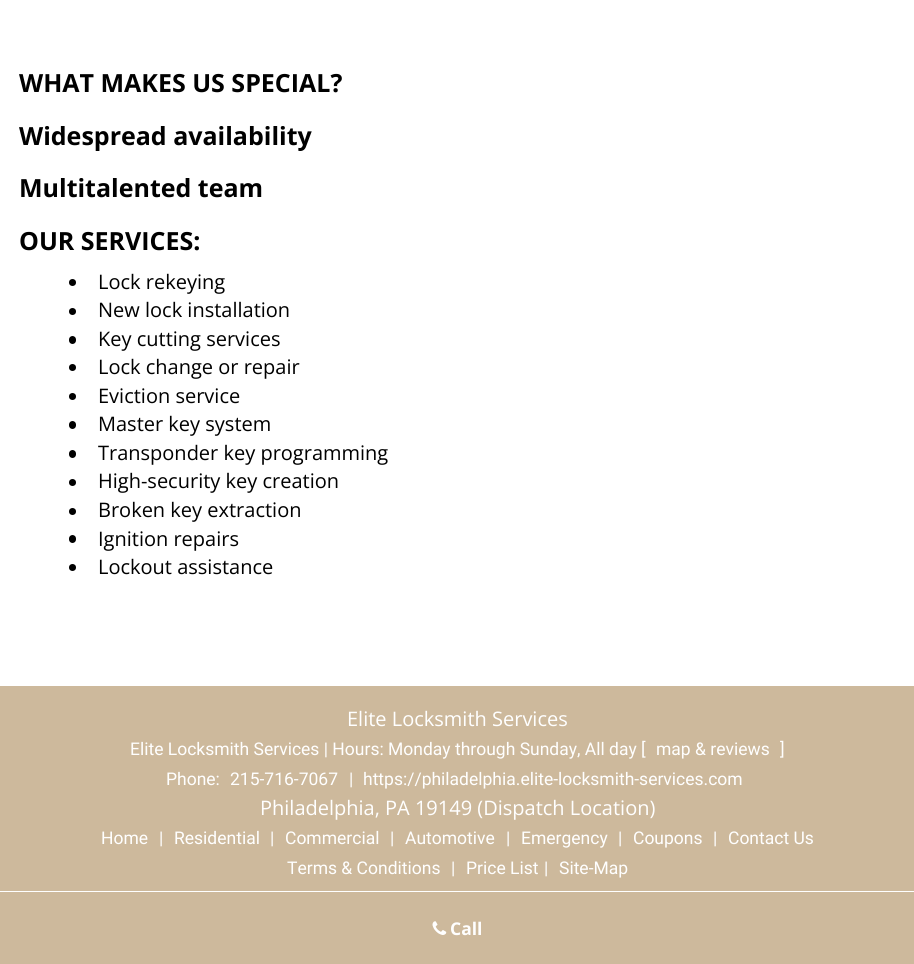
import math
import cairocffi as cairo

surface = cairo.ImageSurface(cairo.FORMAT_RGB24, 914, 964)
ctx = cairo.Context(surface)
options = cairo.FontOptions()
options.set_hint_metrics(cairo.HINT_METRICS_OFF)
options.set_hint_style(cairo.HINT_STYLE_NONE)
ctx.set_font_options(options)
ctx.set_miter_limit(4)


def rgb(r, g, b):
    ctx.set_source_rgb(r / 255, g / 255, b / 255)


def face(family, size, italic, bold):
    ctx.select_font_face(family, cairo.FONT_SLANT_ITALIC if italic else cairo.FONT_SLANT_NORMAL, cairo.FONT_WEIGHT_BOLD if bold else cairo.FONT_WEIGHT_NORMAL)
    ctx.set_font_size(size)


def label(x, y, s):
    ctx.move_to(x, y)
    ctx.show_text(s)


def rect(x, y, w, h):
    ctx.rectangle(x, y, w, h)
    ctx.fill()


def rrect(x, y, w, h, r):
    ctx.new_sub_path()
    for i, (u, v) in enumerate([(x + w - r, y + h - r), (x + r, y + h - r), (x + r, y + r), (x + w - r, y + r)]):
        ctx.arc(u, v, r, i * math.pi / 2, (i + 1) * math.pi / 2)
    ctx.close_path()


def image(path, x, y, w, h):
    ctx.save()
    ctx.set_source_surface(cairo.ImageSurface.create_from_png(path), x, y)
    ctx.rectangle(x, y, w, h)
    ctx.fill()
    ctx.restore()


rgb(205, 185, 156)
ctx.paint()
rgb(255, 255, 255)
rect(0, 0, 914, 686)
face('Open Sans', 25, 0, 1)
rgb(0, 0, 0)
label(19, 92, 'WHAT MAKES US SPECIAL?')
label(19, 145, 'Widespread availability')
label(19, 197, 'Multitalented team')
label(19, 250, 'OUR SERVICES:')
ctx.new_path()
ctx.arc(72.5, 282.5, 3.5, 0, 2 * math.pi)
ctx.fill()
face('Open Sans', 20, 0, 0)
label(98, 289, 'Lock rekeying')
ctx.new_path()
ctx.arc(72.5, 311.5, 3.5, 0, 2 * math.pi)
ctx.fill()
label(98, 317, 'New lock installation')
rrect(69, 336, 7, 8, 3.5)
ctx.fill()
label(98, 346, 'Key cutting services')
ctx.new_path()
ctx.arc(72.5, 367.5, 3.5, 0, 2 * math.pi)
ctx.fill()
label(98, 374, 'Lock change or repair')
ctx.new_path()
ctx.arc(72.5, 396.5, 3.5, 0, 2 * math.pi)
ctx.fill()
label(98, 403, 'Eviction service')
rrect(69, 421, 7, 8, 3.5)
ctx.fill()
label(98, 431, 'Master key system')
rrect(69, 450, 7, 8, 3.5)
ctx.fill()
label(98, 460, 'Transponder key programming')
ctx.new_path()
ctx.arc(72.5, 482.5, 3.5, 0, 2 * math.pi)
ctx.fill()
label(98, 488, 'High-security key creation')
ctx.new_path()
ctx.arc(72.5, 511.5, 3.5, 0, 2 * math.pi)
ctx.fill()
label(98, 517, 'Broken key extraction')
rrect(69, 535, 7, 8, 3.5)
ctx.fill()
label(98, 546, 'Ignition repairs')
ctx.new_path()
ctx.arc(72.5, 567.5, 3.5, 0, 2 * math.pi)
ctx.fill()
label(98, 574, 'Lockout assistance')
rgb(255, 255, 255)
label(347, 726, 'Elite Locksmith Services')
face('Roboto', 17.5, 0, 0)
label(130, 755, 'Elite Locksmith Services | Hours: Monday through Sunday, All day [')
label(656, 755, 'map & reviews')
label(780, 755, ']')
label(166, 785, 'Phone:')
label(230, 785, '215-716-7067')
label(349, 785, '|')
label(363, 785, 'https://philadelphia.elite-locksmith-services.com')
face('Open Sans', 20, 0, 0)
label(260, 815, 'Philadelphia, PA 19149 (Dispatch Location)')
face('Roboto', 17.5, 0, 0)
label(101, 844, 'Home')
label(159, 844, '|')
label(174, 844, 'Residential')
label(270, 844, '|')
label(285, 844, 'Commercial')
label(390, 844, '|')
label(405, 844, 'Automotive')
label(506, 844, '|')
label(521, 844, 'Emergency')
label(618, 844, '|')
label(633, 844, 'Coupons')
label(713, 844, '|')
label(728, 844, 'Contact Us')
label(287, 874, 'Terms & Conditions')
label(451, 874, '|')
label(466, 874, 'Price List')
label(544, 874, '|')
label(559, 874, 'Site-Map')
rect(0, 891, 914, 1)
image('image0.png', 432, 921, 15, 14)
face('Open Sans', 17.5, 0, 1)
label(450, 935, 'Call')
surface.write_to_png('render.png')
